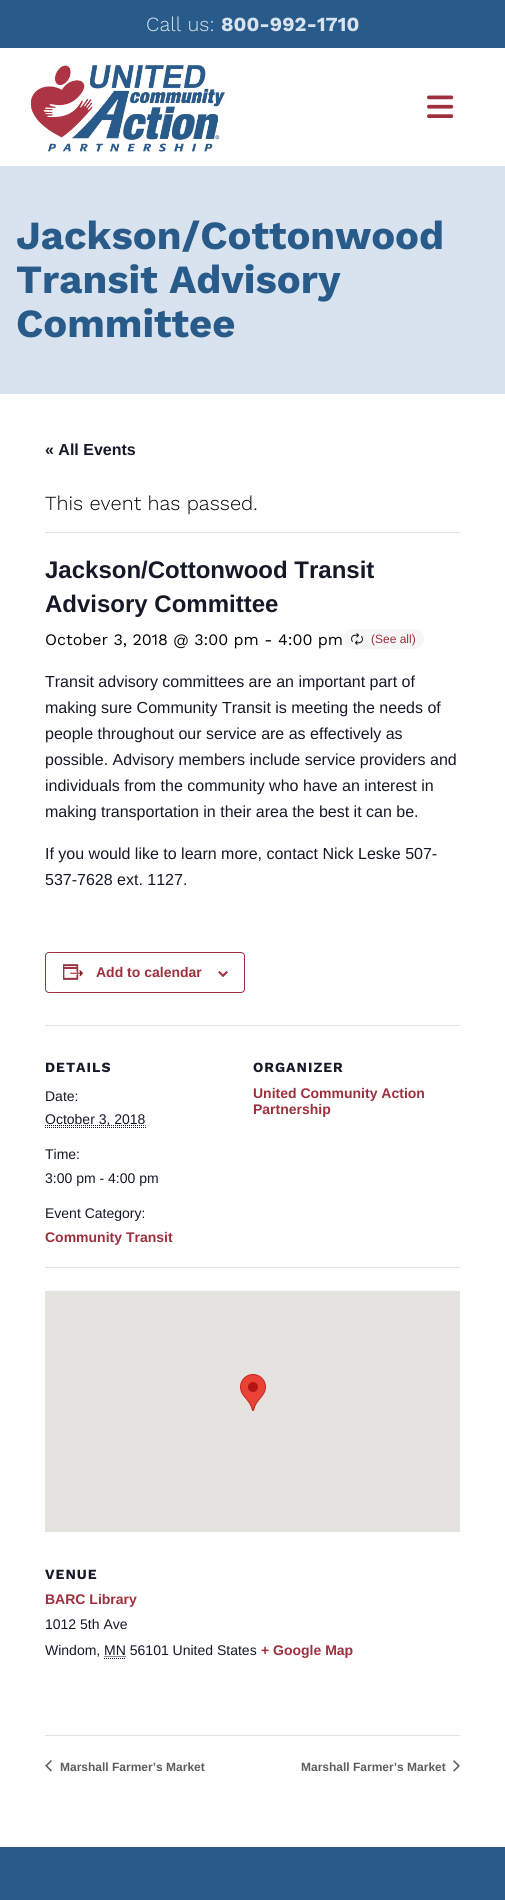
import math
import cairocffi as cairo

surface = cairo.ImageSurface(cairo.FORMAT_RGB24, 505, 1900)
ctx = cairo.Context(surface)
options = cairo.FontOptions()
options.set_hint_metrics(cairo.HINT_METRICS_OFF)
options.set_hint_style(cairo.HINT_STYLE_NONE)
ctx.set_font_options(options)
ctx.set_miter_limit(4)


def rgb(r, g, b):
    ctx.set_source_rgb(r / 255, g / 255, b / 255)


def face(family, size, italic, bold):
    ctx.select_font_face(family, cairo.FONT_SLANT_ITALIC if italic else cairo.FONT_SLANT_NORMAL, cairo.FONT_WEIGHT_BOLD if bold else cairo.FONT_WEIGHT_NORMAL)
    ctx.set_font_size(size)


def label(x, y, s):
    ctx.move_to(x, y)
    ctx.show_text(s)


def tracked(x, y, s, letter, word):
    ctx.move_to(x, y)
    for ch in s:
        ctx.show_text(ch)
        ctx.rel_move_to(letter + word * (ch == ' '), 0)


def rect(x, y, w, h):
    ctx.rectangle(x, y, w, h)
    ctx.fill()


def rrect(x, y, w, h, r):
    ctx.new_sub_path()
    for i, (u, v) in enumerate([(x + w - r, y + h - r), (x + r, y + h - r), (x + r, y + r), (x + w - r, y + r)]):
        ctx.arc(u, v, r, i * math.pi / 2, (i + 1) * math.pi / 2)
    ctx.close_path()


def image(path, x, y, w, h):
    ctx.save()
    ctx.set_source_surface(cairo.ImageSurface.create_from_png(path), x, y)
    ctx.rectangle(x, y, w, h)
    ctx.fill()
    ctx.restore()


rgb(255, 255, 255)
ctx.paint()
rgb(40, 91, 138)
rect(0, 0, 505, 48)
face('Work Sans Light', 20, 0, 0)
rgb(217, 227, 239)
label(146, 31, 'Call us:')
face('Work Sans', 20, 0, 1)
label(221, 31, '800-992-1710')
image('image0.png', 31, 65, 196, 88)
image('image1.png', 427, 95, 27, 23)
rect(0, 166, 505, 228)
face('Work Sans', 40, 0, 1)
rgb(40, 91, 138)
label(16, 249, 'Jackson/Cottonwood')
label(16, 293, 'Transit Advisory')
label(16, 337, 'Committee')
face('Liberation Sans', 16, 0, 1)
rgb(20, 24, 39)
label(45, 455, '« All Events')
rgb(228, 228, 228)
rect(45, 532, 415, 1)
face('Work Sans Light', 20, 0, 0)
rgb(0, 0, 0)
label(45, 510, 'This event has passed.')
face('Liberation Sans', 24, 0, 1)
rgb(20, 24, 39)
label(45, 578, 'Jackson/Cottonwood Transit')
label(45, 612, 'Advisory Committee')
face('Work Sans', 16, 0, 0)
rgb(0, 0, 0)
label(45, 645, 'October 3, 2018 @ 3:00 pm - 4:00 pm')
rgb(247, 246, 246)
rrect(343, 629, 81, 20, 10)
ctx.fill()
image('image2.png', 351, 633, 12, 12)
face('Liberation Sans', 12, 0, 0)
rgb(158, 48, 62)
label(371, 643, '(See all)')
face('Liberation Sans', 16, 0, 0)
rgb(20, 24, 39)
label(45, 687, 'Transit advisory committees are an important part of')
label(45, 713, 'making sure Community Transit is meeting the needs of')
label(45, 739, 'people throughout our service are as effectively as')
label(45, 765, 'possible. Advisory members include service providers and')
label(45, 791, 'individuals from the community who have an interest in')
label(45, 817, 'making transportation in their area the best it can be.')
label(45, 859, 'If you would like to learn more, contact Nick Leske 507-')
label(45, 885, '537-7628 ext. 1127.')
rrect(45.5, 952.5, 199, 40, 3.5)
rgb(158, 48, 62)
ctx.set_line_width(1)
ctx.stroke()
image('image3.png', 63, 964, 21, 16)
face('Liberation Sans', 14, 0, 1)
label(96, 977, 'Add to calendar')
image('image4.png', 218, 971, 10, 6)
rgb(228, 228, 228)
rect(45, 1025, 415, 1)
face('Work Sans', 14, 0, 1)
rgb(20, 24, 39)
tracked(45, 1072, 'DETAILS', 1, 0)
face('Liberation Sans', 14, 0, 0)
label(45, 1101, 'Date:')
ctx.new_path()
ctx.move_to(45, 1125.5)
ctx.line_to(145.5, 1125.5)
ctx.set_dash([1, 1])
ctx.stroke()
label(45, 1124, 'October 3, 2018')
ctx.new_path()
ctx.move_to(45, 1127.5)
ctx.line_to(146, 1127.5)
ctx.stroke()
label(45, 1159, 'Time:')
label(45, 1183, '3:00 pm - 4:00 pm')
label(45, 1218, 'Event Category:')
face('Liberation Sans', 14, 0, 1)
rgb(158, 48, 62)
label(45, 1242, 'Community Transit')
face('Work Sans', 14, 0, 1)
rgb(20, 24, 39)
tracked(253, 1072, 'ORGANIZER', 1, 0)
face('Liberation Sans', 14, 0, 1)
rgb(158, 48, 62)
label(253, 1098, 'United Community Action')
label(253, 1114, 'Partnership')
rgb(228, 228, 228)
rect(45, 1267, 415, 1)
rgb(229, 227, 223)
rect(45, 1291, 415, 241)
image('image5.png', 240, 1374, 26, 37)
face('Work Sans', 14, 0, 1)
rgb(20, 24, 39)
tracked(45, 1579, 'VENUE', 1, 0)
face('Liberation Sans', 14, 0, 1)
rgb(158, 48, 62)
label(45, 1604, 'BARC Library')
face('Liberation Sans', 14, 0, 0)
rgb(20, 24, 39)
label(45, 1629, '1012 5th Ave')
label(45, 1655, 'Windom, MN 56101 United States')
ctx.new_path()
ctx.move_to(104, 1658.5)
ctx.line_to(126, 1658.5)
ctx.move_to(104.5, 1656.5)
ctx.line_to(126, 1656.5)
ctx.stroke()
face('Liberation Sans', 14, 0, 1)
rgb(158, 48, 62)
label(261, 1655, '+ Google Map')
rgb(228, 228, 228)
rect(45, 1735, 415, 1)
image('image6.png', 45, 1760, 7, 12)
face('Liberation Sans', 12, 0, 1)
rgb(93, 93, 93)
label(60, 1771, 'Marshall Farmer’s Market')
label(301, 1771, 'Marshall Farmer’s Market')
image('image7.png', 453, 1760, 7, 12)
rgb(40, 91, 138)
rect(0, 1847, 505, 53)
surface.write_to_png('render.png')
